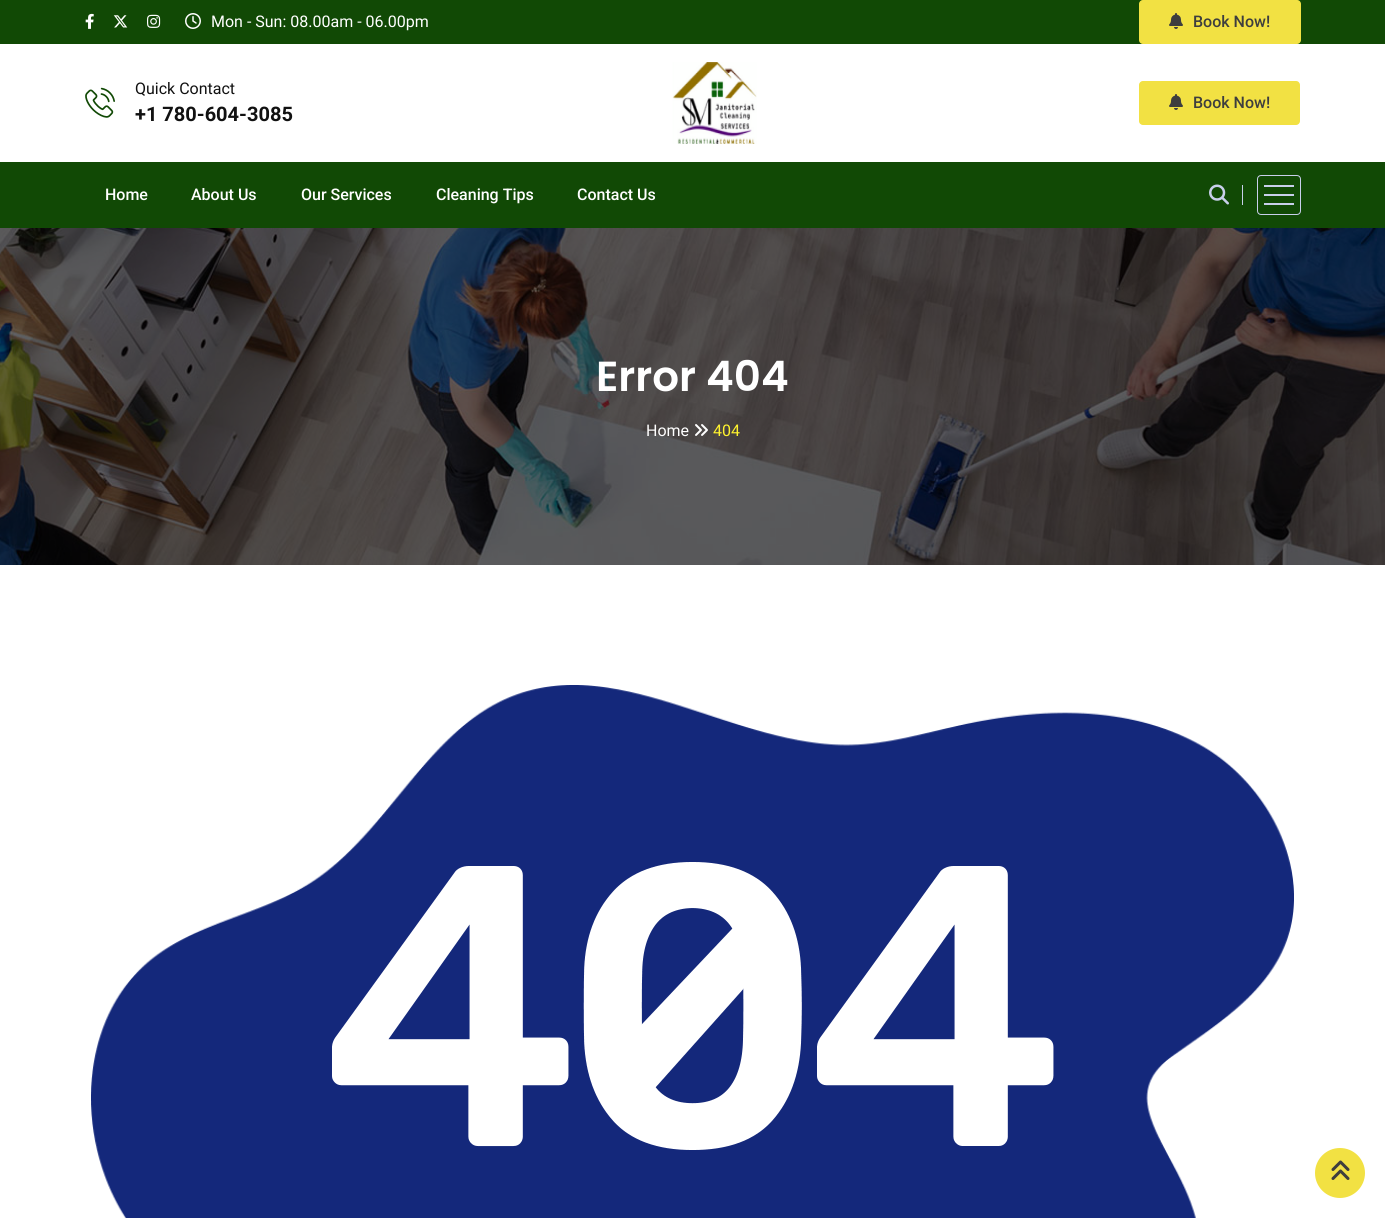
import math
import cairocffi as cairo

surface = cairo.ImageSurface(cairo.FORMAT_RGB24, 1385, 1218)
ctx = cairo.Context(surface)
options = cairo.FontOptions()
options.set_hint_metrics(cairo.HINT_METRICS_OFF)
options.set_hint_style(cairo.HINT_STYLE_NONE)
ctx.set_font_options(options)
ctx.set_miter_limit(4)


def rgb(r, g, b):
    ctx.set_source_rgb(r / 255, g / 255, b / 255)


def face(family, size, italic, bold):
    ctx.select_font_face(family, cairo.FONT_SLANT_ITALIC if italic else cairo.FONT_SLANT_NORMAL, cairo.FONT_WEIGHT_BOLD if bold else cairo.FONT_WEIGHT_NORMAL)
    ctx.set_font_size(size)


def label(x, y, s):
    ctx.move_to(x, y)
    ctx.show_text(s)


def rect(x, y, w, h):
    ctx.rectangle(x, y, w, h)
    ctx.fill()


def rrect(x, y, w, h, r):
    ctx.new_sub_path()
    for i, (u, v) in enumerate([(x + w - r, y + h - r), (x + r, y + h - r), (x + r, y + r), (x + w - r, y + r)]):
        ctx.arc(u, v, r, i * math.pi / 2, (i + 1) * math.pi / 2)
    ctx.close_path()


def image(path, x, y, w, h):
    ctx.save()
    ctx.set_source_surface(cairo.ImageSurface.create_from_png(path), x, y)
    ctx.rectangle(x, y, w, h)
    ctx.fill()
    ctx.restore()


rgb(255, 255, 255)
ctx.paint()
rgb(17, 73, 5)
rect(0, 0, 1385, 44)
image('image0.png', 85, 13, 9, 16)
image('image1.png', 113, 15, 15, 13)
image('image2.png', 147, 14, 14, 14)
image('image3.png', 185, 13, 16, 16)
face('Roboto', 16, 0, 0)
rgb(255, 255, 255)
label(211, 27, 'Mon - Sun: 08.00am - 06.00pm')
rgb(242, 225, 67)
rrect(1139, 0, 162, 44, 4)
ctx.fill()
image('image4.png', 1169, 13, 14, 16)
face('Roboto Medium', 16, 0, 0)
rgb(62, 62, 62)
label(1193, 27, 'Book Now!')
image('image5.png', 85, 87, 30, 31)
face('Roboto', 16, 0, 0)
rgb(17, 17, 17)
label(135, 94, 'Quick Contact')
face('Roboto', 20, 0, 1)
label(135, 121, '+1 780-604-3085')
image('image6.png', 672, 62, 85, 82)
rgb(242, 225, 67)
rrect(1139, 81, 161, 44, 4)
ctx.fill()
image('image4.png', 1169, 94, 14, 16)
face('Roboto Medium', 16, 0, 0)
rgb(62, 62, 62)
label(1193, 108, 'Book Now!')
rgb(17, 73, 5)
rect(0, 162, 1385, 66)
rgb(255, 255, 255)
label(105, 200, 'Home')
label(191, 200, 'About Us')
label(301, 200, 'Our Services')
label(436, 200, 'Cleaning Tips')
label(577, 200, 'Contact Us')
image('image7.png', 1209, 184, 20, 21)
rgb(200, 207, 235)
rect(1242, 185, 1, 20)
rrect(1257.5, 175.5, 43, 39, 3.5)
ctx.set_line_width(1)
ctx.stroke()
rect(1264, 185, 30, 2)
rect(1264, 194, 30, 2)
rect(1264, 203, 30, 2)
image('image8.png', 0, 228, 1385, 337)
face('Poppins SemiBold', 42, 0, 0)
rgb(255, 255, 255)
label(596, 391, 'Error 404')
face('Roboto', 16, 0, 0)
label(646, 436, 'Home')
image('image9.png', 695, 424, 13, 12)
rgb(254, 242, 46)
label(713, 436, '404')
image('image10.png', 91, 685, 1203, 533)
image('image11.png', 332, 862, 722, 288)
rgb(242, 225, 67)
ctx.arc(1340, 1173, 24, 0, 2 * math.pi)
ctx.fill_preserve()
ctx.set_line_width(2)
ctx.stroke()
image('image12.png', 1331, 1160, 19, 20)
surface.write_to_png('render.png')
